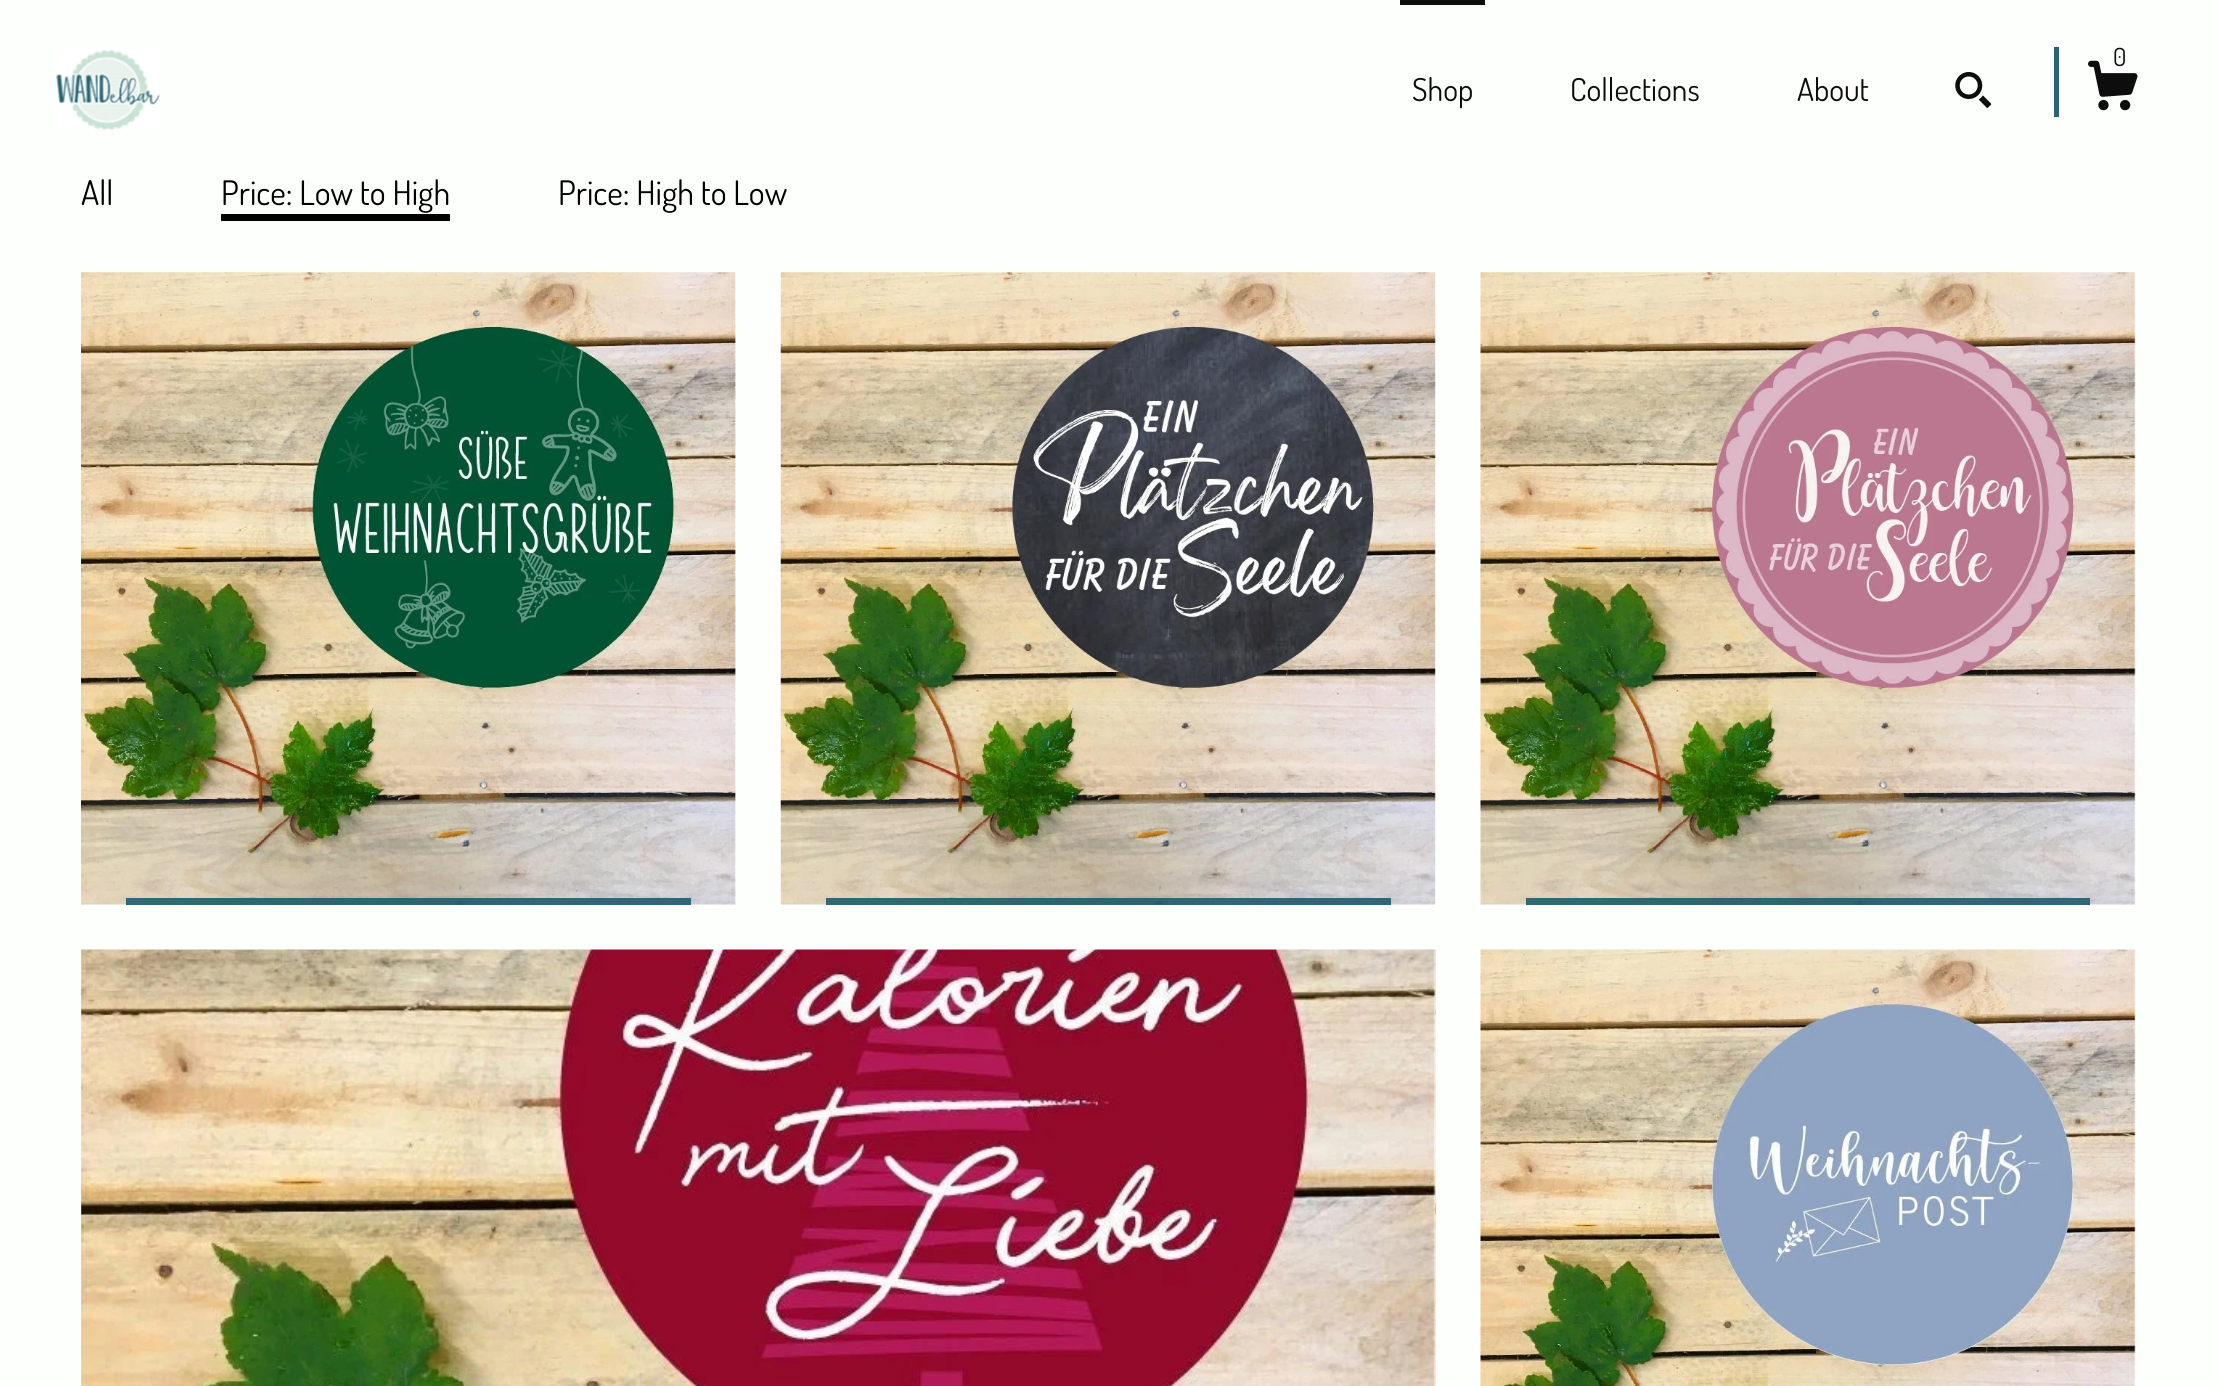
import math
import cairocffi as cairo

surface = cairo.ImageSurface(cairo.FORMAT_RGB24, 2218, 1386)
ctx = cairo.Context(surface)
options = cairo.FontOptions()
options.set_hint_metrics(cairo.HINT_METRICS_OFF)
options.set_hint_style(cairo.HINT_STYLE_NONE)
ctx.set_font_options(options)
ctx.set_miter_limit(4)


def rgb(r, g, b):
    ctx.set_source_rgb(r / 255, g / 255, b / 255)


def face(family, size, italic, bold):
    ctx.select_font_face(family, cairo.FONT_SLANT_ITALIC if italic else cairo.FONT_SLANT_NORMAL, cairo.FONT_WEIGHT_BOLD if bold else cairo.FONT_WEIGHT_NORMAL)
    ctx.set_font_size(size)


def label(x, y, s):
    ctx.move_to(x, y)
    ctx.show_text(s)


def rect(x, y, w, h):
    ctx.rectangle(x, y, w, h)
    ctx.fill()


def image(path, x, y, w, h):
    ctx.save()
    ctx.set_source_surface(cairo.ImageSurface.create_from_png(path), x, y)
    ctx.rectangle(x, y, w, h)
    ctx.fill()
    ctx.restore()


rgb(253, 255, 253)
ctx.paint()
image('image0.png', 56, 49, 104, 82)
rgb(41, 100, 118)
rect(2054, 47, 5, 70)
image('image1.png', 2088, 60, 50, 51)
face('Dosis', 25, 0, 0)
rgb(13, 13, 13)
label(2113, 66, '0')
rect(1400, 0, 85, 5)
face('Dosis', 31.5, 0, 0)
label(1412, 101, 'Shop')
label(1570, 101, 'Collections')
label(1797, 101, 'About')
image('image2.png', 1955, 72, 37, 36)
face('Dosis', 33.75, 0, 0)
rgb(0, 0, 0)
label(81, 205, 'All')
label(221, 205, 'Price: Low to High')
rect(221, 214, 229, 7)
label(558, 205, 'Price: High to Low')
image('image3.png', 81, 272, 655, 633)
ctx.set_source_rgba(0.118, 0.361, 0.435, 0.9)
rect(126, 898, 565, 7)
image('image4.png', 780, 272, 656, 633)
rect(826, 898, 565, 7)
image('image5.png', 1480, 272, 656, 633)
rect(1526, 898, 564, 7)
image('image6.png', 81, 949, 1355, 437)
image('image7.png', 1480, 949, 656, 437)
surface.write_to_png('render.png')
